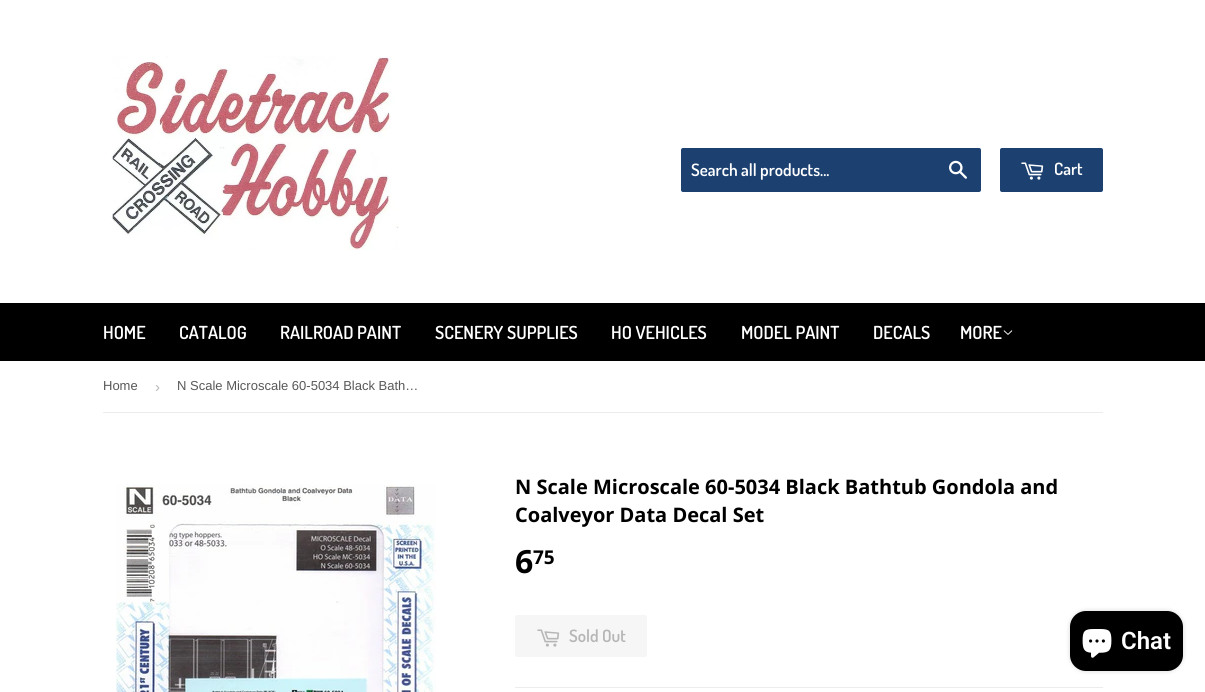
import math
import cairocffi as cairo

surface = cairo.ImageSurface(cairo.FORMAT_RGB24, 1205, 692)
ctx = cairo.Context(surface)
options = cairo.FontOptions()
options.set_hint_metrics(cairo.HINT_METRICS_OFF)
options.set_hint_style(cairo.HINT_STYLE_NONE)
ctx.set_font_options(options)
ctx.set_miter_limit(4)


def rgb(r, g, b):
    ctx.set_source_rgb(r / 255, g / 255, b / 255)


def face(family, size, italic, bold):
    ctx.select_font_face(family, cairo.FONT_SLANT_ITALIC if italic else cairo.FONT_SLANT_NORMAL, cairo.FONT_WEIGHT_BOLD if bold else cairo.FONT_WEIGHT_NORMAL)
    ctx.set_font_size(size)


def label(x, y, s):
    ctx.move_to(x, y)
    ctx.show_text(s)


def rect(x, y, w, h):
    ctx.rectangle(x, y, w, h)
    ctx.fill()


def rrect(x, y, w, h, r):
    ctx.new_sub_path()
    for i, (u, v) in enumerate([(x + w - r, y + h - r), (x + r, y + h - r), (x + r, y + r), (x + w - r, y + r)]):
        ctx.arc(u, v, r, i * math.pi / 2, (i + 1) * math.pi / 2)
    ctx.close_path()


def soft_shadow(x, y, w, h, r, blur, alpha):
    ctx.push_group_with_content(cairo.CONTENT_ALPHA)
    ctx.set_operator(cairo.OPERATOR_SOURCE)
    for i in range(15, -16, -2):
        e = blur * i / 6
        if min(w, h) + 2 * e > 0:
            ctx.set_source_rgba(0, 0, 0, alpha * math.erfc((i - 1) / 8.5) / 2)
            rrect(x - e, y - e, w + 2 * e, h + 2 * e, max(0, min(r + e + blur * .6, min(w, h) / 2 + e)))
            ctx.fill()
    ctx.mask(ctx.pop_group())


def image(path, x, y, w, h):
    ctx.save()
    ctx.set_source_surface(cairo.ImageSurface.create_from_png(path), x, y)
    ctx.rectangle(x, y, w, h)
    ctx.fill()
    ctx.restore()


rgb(255, 255, 255)
ctx.paint()
image('image0.png', 111, 56, 288, 194)
rgb(28, 65, 112)
rrect(681, 148, 300, 44, 2)
ctx.fill()
face('Dosis SemiBold', 17, 0, 0)
rgb(255, 255, 255)
label(691, 176, 'Search all products...')
image('image1.png', 949, 160, 18, 19)
rgb(28, 65, 112)
rrect(1000, 148, 103, 44, 2)
ctx.fill()
image('image2.png', 1021, 162, 23, 18)
rgb(255, 255, 255)
label(1054, 175, 'Cart')
rgb(0, 0, 0)
rect(0, 303, 1205, 58)
face('Dosis SemiBold', 18, 0, 0)
rgb(255, 255, 255)
label(103, 339, 'HOME')
label(179, 339, 'CATALOG')
label(280, 339, 'RAILROAD PAINT')
label(435, 339, 'SCENERY SUPPLIES')
label(611, 339, 'HO VEHICLES')
label(741, 339, 'MODEL PAINT')
label(873, 339, 'DECALS')
label(960, 339, 'MORE')
image('image3.png', 1003, 330, 10, 5)
rgb(236, 236, 236)
rect(103, 412, 1000, 1)
face('Liberation Sans', 13, 0, 0)
rgb(88, 88, 88)
label(103, 390, 'Home')
face('Liberation Sans', 15, 0, 0)
rgb(182, 182, 182)
label(155, 392, '›')
face('Liberation Sans', 13, 0, 0)
rgb(88, 88, 88)
label(177, 390, 'N Scale Microscale 60-5034 Black Bath…')
image('image4.png', 116, 484, 320, 208)
face('Open Sans', 20, 0, 1)
rgb(0, 0, 0)
label(515, 494, 'N Scale Microscale 60-5034 Black Bathtub Gondola and')
label(515, 522, 'Coalveyor Data Decal Set')
face('Open Sans', 32, 0, 1)
label(515, 573, '6')
face('Open Sans', 19, 0, 1)
label(533, 564, '75')
rgb(246, 246, 246)
rrect(515, 615, 132, 42, 2)
ctx.fill()
image('image5.png', 537, 629, 23, 18)
face('Dosis SemiBold', 17, 0, 0)
rgb(182, 182, 182)
label(569, 642, 'Sold Out')
rgb(236, 236, 236)
rect(515, 687, 588, 1)
rgb(0, 0, 0)
soft_shadow(1070, 611, 113, 60, 16, 2.5, 0.15)
rgb(0, 0, 0)
rrect(1070, 611, 113, 60, 16)
ctx.fill()
image('image6.png', 1082, 629, 30, 29)
face('Roboto SemiBold', 24, 0, 0)
rgb(255, 255, 255)
label(1121, 649, 'Chat')
surface.write_to_png('render.png')
